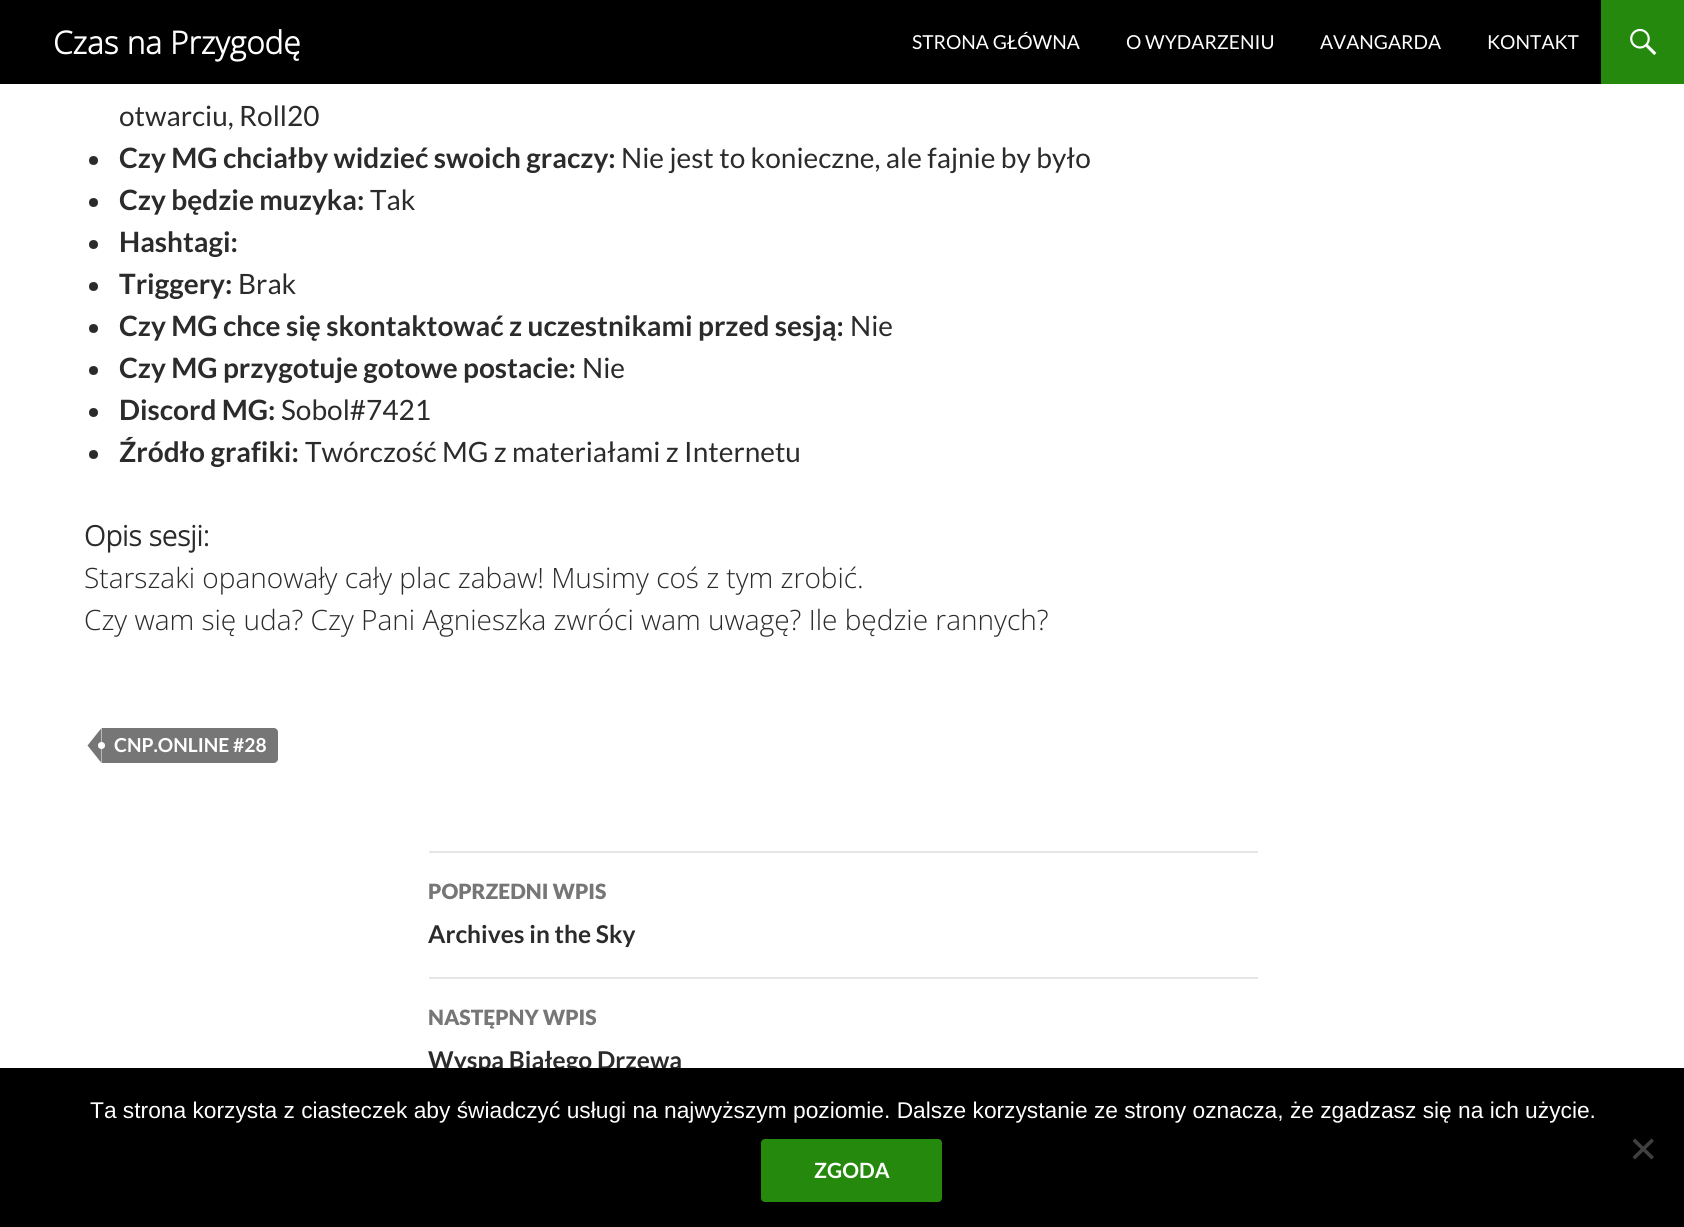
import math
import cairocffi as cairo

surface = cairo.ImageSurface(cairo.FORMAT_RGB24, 1684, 1227)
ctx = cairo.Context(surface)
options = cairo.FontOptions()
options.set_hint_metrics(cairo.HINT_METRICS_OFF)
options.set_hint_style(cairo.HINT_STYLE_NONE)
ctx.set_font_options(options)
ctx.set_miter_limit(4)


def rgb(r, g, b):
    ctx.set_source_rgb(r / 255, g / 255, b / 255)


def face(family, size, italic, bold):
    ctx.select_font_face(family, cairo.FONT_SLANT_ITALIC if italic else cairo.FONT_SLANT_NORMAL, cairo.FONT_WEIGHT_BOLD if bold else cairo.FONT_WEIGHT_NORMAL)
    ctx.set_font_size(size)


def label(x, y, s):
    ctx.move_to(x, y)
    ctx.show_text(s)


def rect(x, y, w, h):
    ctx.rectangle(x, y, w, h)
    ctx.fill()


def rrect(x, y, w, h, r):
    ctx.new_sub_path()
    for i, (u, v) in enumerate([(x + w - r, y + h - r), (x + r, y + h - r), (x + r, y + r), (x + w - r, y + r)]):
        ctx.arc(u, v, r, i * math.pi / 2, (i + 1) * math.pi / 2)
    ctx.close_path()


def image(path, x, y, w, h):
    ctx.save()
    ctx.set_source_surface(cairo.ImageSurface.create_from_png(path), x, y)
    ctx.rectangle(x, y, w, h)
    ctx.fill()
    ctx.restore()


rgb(255, 255, 255)
ctx.paint()
rgb(0, 0, 0)
rect(0, 0, 1601, 84)
face('Open Sans', 31.5, 0, 1)
rgb(255, 255, 255)
label(53, 54, 'Czas na Przygodę')
face('Lato', 19.25, 0, 0)
label(912, 49, 'STRONA GŁÓWNA')
label(1126, 49, 'O WYDARZENIU')
label(1320, 49, 'AVANGARDA')
label(1487, 49, 'KONTAKT')
rgb(36, 137, 13)
rect(1601, 0, 83, 84)
image('image0.png', 1630, 28, 27, 27)
face('Lato', 28, 0, 0)
rgb(43, 43, 43)
label(119, 126, 'otwarciu, Roll20')
ctx.new_path()
ctx.arc(93.5, 160.5, 4.5, 0, 2 * math.pi)
ctx.fill()
face('Lato', 28, 0, 1)
label(119, 168, 'Czy MG chciałby widzieć swoich graczy:')
face('Lato', 28, 0, 0)
label(621, 168, 'Nie jest to konieczne, ale fajnie by było')
ctx.new_path()
ctx.arc(93.5, 202.5, 4.5, 0, 2 * math.pi)
ctx.fill()
face('Lato', 28, 0, 1)
label(119, 210, 'Czy będzie muzyka:')
face('Lato', 28, 0, 0)
label(370, 210, 'Tak')
ctx.new_path()
ctx.arc(93.5, 244.5, 4.5, 0, 2 * math.pi)
ctx.fill()
face('Lato', 28, 0, 1)
label(119, 252, 'Hashtagi:')
ctx.new_path()
ctx.arc(93.5, 286.5, 4.5, 0, 2 * math.pi)
ctx.fill()
label(119, 294, 'Triggery:')
face('Lato', 28, 0, 0)
label(238, 294, 'Brak')
ctx.new_path()
ctx.arc(93.5, 328.5, 4.5, 0, 2 * math.pi)
ctx.fill()
face('Lato', 28, 0, 1)
label(119, 336, 'Czy MG chce się skontaktować z uczestnikami przed sesją:')
face('Lato', 28, 0, 0)
label(850, 336, 'Nie')
ctx.new_path()
ctx.arc(93.5, 370.5, 4.5, 0, 2 * math.pi)
ctx.fill()
face('Lato', 28, 0, 1)
label(119, 378, 'Czy MG przygotuje gotowe postacie:')
face('Lato', 28, 0, 0)
label(582, 378, 'Nie')
ctx.new_path()
ctx.arc(93.5, 412.5, 4.5, 0, 2 * math.pi)
ctx.fill()
face('Lato', 28, 0, 1)
label(119, 420, 'Discord MG:')
face('Lato', 28, 0, 0)
label(281, 420, 'Sobol#7421')
ctx.new_path()
ctx.arc(93.5, 454.5, 4.5, 0, 2 * math.pi)
ctx.fill()
face('Lato', 28, 0, 1)
label(119, 462, 'Źródło grafiki:')
face('Lato', 28, 0, 0)
label(305, 462, 'Twórczość MG z materiałami z Internetu')
face('Open Sans', 28, 0, 1)
label(84, 546, 'Opis sesji:')
face('Open Sans Light', 28, 0, 0)
label(84, 588, 'Starszaki opanowały cały plac zabaw! Musimy coś z tym zrobić.')
label(84, 630, 'Czy wam się uda? Czy Pani Agnieszka zwróci wam uwagę? Ile będzie rannych?')
rgb(118, 118, 118)
ctx.new_path()
ctx.move_to(102, 728)
ctx.line_to(274, 728)
ctx.curve_to(276, 728, 278, 730, 278, 732)
ctx.line_to(278, 759)
ctx.curve_to(278, 761, 276, 763, 274, 763)
ctx.line_to(102, 763)
ctx.close_path()
ctx.fill()
ctx.new_path()
ctx.move_to(101.5, 728)
ctx.line_to(101.5, 763)
ctx.line_to(87.5, 745.5)
ctx.close_path()
ctx.fill()
face('Lato', 19.25, 0, 1)
rgb(255, 255, 255)
label(114, 752, 'CNP.ONLINE #28')
ctx.new_path()
ctx.arc(101.5, 745.5, 3.5, 0, 2 * math.pi)
ctx.fill()
rgb(230, 230, 230)
rect(429, 851, 829, 2)
rect(429, 977, 829, 2)
face('Lato Black', 21, 0, 0)
rgb(118, 118, 118)
label(428, 899, 'POPRZEDNI WPIS')
face('Lato', 24.5, 0, 1)
rgb(43, 43, 43)
label(428, 943, 'Archives in the Sky')
face('Lato Black', 21, 0, 0)
rgb(118, 118, 118)
label(428, 1025, 'NASTĘPNY WPIS')
face('Lato', 24.5, 0, 1)
rgb(43, 43, 43)
label(428, 1069, 'Wyspa Białego Drzewa')
rgb(0, 0, 0)
rect(0, 1068, 1684, 159)
face('Liberation Sans', 22.75, 0, 0)
rgb(255, 255, 255)
label(90, 1118, 'Ta strona korzysta z ciasteczek aby świadczyć usługi na najwyższym poziomie. Dalsze korzystanie ze strony oznacza, że zgadzasz się na ich użycie.')
rgb(64, 64, 64)
ctx.new_path()
ctx.move_to(1651.5, 1138.5)
ctx.line_to(1654, 1141)
ctx.line_to(1635, 1159.5)
ctx.line_to(1632.5, 1157)
ctx.close_path()
ctx.fill()
ctx.new_path()
ctx.move_to(1632.5, 1141)
ctx.line_to(1635, 1138.5)
ctx.line_to(1654, 1157)
ctx.line_to(1651.5, 1159.5)
ctx.close_path()
ctx.fill()
rgb(36, 137, 13)
rrect(761, 1139, 181, 63, 4)
ctx.fill()
face('Lato', 21, 0, 1)
rgb(255, 255, 255)
label(814, 1178, 'ZGODA')
surface.write_to_png('render.png')
